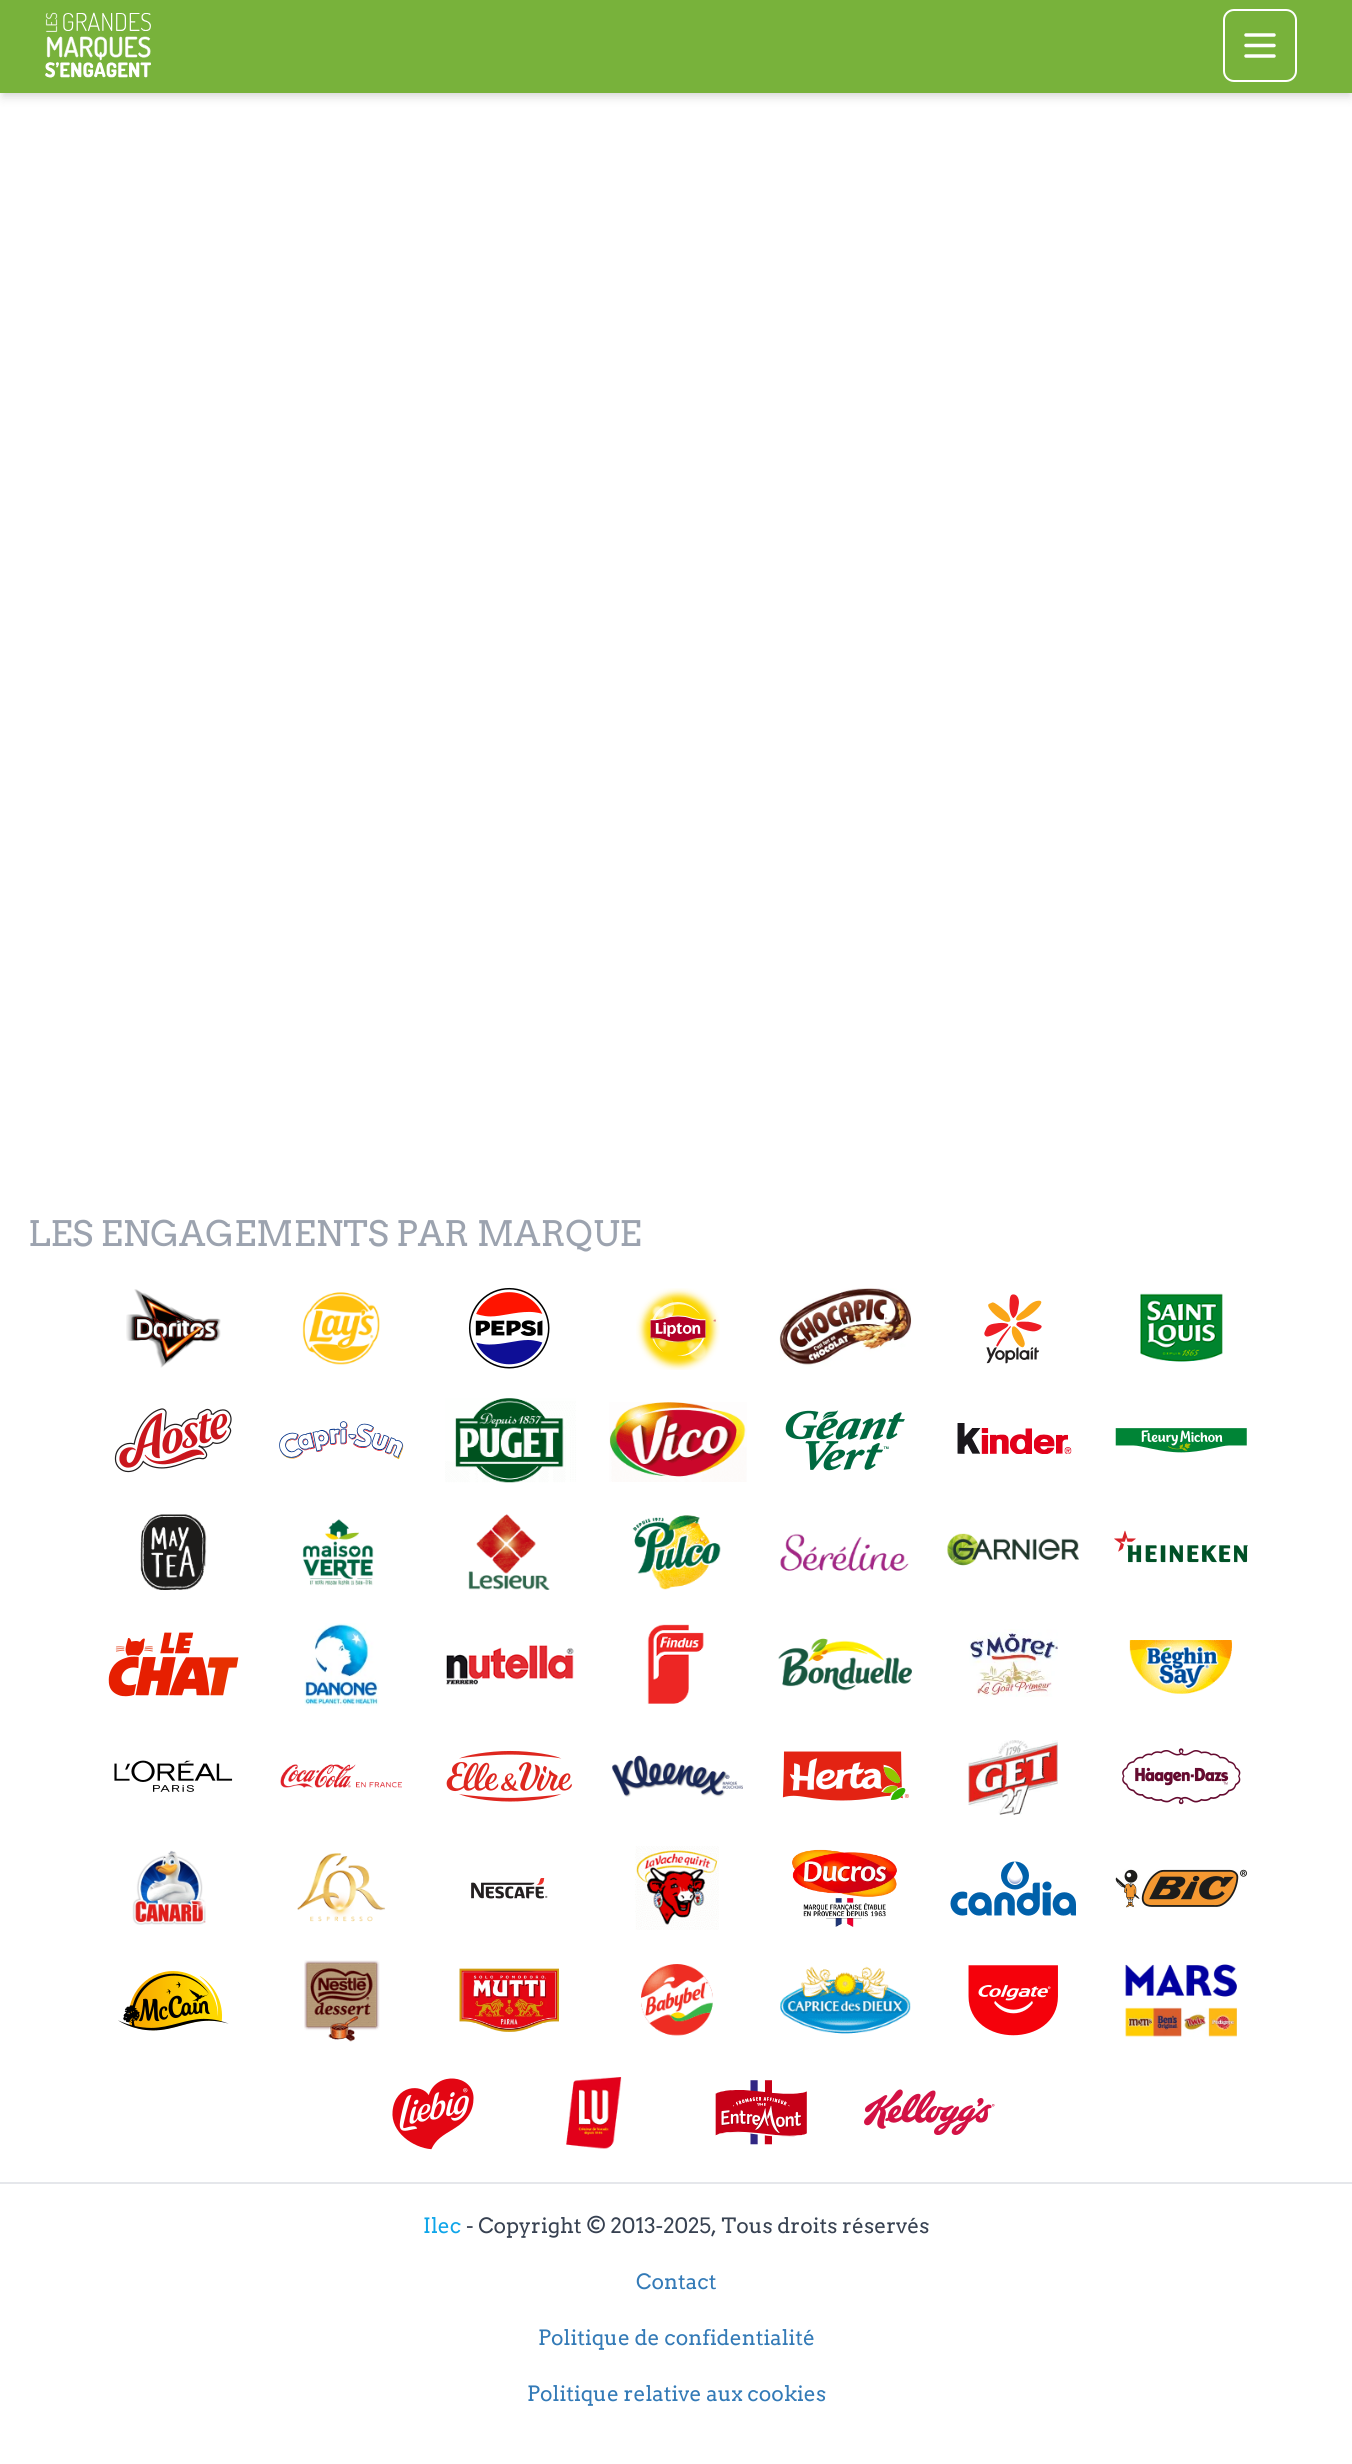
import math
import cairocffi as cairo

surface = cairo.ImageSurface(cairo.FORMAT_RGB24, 1352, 2464)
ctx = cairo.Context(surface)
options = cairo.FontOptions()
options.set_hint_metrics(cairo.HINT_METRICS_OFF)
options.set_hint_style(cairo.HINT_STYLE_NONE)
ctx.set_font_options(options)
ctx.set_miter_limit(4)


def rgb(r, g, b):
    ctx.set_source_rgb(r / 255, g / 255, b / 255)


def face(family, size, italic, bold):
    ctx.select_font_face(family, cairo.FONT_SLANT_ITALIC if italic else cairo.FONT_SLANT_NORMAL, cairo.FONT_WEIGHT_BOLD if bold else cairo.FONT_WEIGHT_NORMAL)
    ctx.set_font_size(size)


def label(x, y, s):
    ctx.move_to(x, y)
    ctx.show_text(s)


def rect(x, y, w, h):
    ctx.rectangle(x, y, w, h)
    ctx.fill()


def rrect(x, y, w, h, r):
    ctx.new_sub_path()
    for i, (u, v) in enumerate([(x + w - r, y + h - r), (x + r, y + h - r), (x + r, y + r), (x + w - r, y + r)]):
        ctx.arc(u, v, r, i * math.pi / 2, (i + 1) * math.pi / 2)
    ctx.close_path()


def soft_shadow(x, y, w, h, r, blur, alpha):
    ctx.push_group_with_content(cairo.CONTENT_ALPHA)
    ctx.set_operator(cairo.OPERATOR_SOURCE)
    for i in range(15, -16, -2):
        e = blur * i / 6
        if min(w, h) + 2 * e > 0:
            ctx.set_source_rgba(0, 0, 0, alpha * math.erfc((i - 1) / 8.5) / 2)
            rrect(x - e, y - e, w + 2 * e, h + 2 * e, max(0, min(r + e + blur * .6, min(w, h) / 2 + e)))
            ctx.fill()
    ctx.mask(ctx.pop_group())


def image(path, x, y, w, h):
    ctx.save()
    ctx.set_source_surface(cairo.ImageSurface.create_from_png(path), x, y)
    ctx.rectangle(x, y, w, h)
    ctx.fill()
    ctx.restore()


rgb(255, 255, 255)
ctx.paint()
rgb(0, 0, 0)
soft_shadow(4, 7, 1345, 86, 0, 3.5, 0.1)
soft_shadow(2, 9, 1349, 89, 0, 5, 0.1)
rgb(120, 178, 59)
rect(0, 0, 1352, 93)
image('image0.png', 45, 12, 106, 66)
rrect(1224, 10, 72, 71, 10)
rgb(255, 255, 255)
ctx.stroke()
ctx.new_path()
ctx.move_to(1246, 35)
ctx.line_to(1274, 35)
ctx.move_to(1246, 45.5)
ctx.line_to(1274, 45.5)
ctx.move_to(1246, 56)
ctx.line_to(1274, 56)
ctx.set_line_width(3.5)
ctx.set_line_cap(cairo.LINE_CAP_ROUND)
ctx.set_line_join(cairo.LINE_JOIN_ROUND)
ctx.stroke()
face('Arvo', 35, 0, 0)
rgb(156, 163, 175)
label(28, 1246, 'LES ENGAGEMENTS PAR MARQUE')
image('image1.png', 126, 1289, 95, 79)
image('image2.png', 302, 1292, 78, 73)
image('image3.png', 468, 1287, 82, 82)
image('image4.png', 636, 1288, 84, 82)
image('image5.png', 779, 1288, 133, 79)
image('image6.png', 984, 1294, 58, 70)
image('image7.png', 1140, 1293, 83, 69)
image('image8.png', 114, 1408, 118, 65)
image('image9.png', 279, 1421, 125, 39)
image('image10.png', 445, 1398, 131, 85)
image('image11.png', 609, 1402, 138, 80)
image('image12.png', 785, 1410, 120, 61)
image('image13.png', 957, 1423, 115, 31)
image('image14.png', 1115, 1428, 132, 25)
image('image15.png', 140, 1514, 67, 76)
image('image16.png', 302, 1519, 72, 67)
image('image17.png', 468, 1514, 82, 76)
image('image18.png', 632, 1515, 89, 75)
image('image19.png', 780, 1533, 129, 39)
image('image20.png', 947, 1533, 132, 33)
image('image21.png', 1114, 1530, 134, 33)
image('image22.png', 108, 1632, 131, 65)
image('image23.png', 304, 1623, 75, 83)
image('image24.png', 446, 1645, 128, 40)
image('image25.png', 647, 1624, 57, 80)
image('image26.png', 778, 1638, 134, 53)
image('image27.png', 969, 1629, 89, 68)
image('image28.png', 1129, 1640, 103, 54)
image('image29.png', 114, 1760, 119, 32)
image('image30.png', 280, 1764, 122, 24)
image('image31.png', 446, 1750, 126, 52)
image('image32.png', 611, 1755, 132, 42)
image('image33.png', 782, 1751, 127, 50)
image('image34.png', 968, 1740, 90, 75)
image('image35.png', 1122, 1748, 119, 57)
image('image36.png', 132, 1850, 74, 75)
image('image37.png', 297, 1853, 89, 69)
image('image38.png', 471, 1878, 77, 21)
image('image39.png', 635, 1846, 84, 84)
image('image40.png', 792, 1849, 105, 78)
image('image41.png', 950, 1861, 126, 55)
image('image42.png', 1115, 1869, 132, 39)
image('image43.png', 118, 1971, 111, 60)
image('image44.png', 304, 1960, 76, 82)
image('image45.png', 459, 1968, 100, 64)
image('image46.png', 641, 1964, 72, 72)
image('image47.png', 780, 1966, 131, 68)
image('image48.png', 968, 1965, 90, 71)
image('image49.png', 1125, 1964, 112, 73)
image('image50.png', 392, 2078, 82, 72)
image('image51.png', 566, 2077, 56, 72)
image('image52.png', 715, 2080, 92, 65)
image('image53.png', 864, 2089, 131, 46)
rgb(229, 231, 235)
rect(0, 2182, 1352, 2)
face('Arvo', 21, 0, 0)
rgb(14, 165, 233)
label(423, 2233, 'Ilec')
rgb(55, 65, 81)
label(466, 2233, '- Copyright © 2013-2025, Tous droits réservés')
rgb(51, 122, 183)
label(636, 2289, 'Contact')
label(538, 2345, 'Politique de confidentialité')
label(527, 2401, 'Politique relative aux cookies')
surface.write_to_png('render.png')
